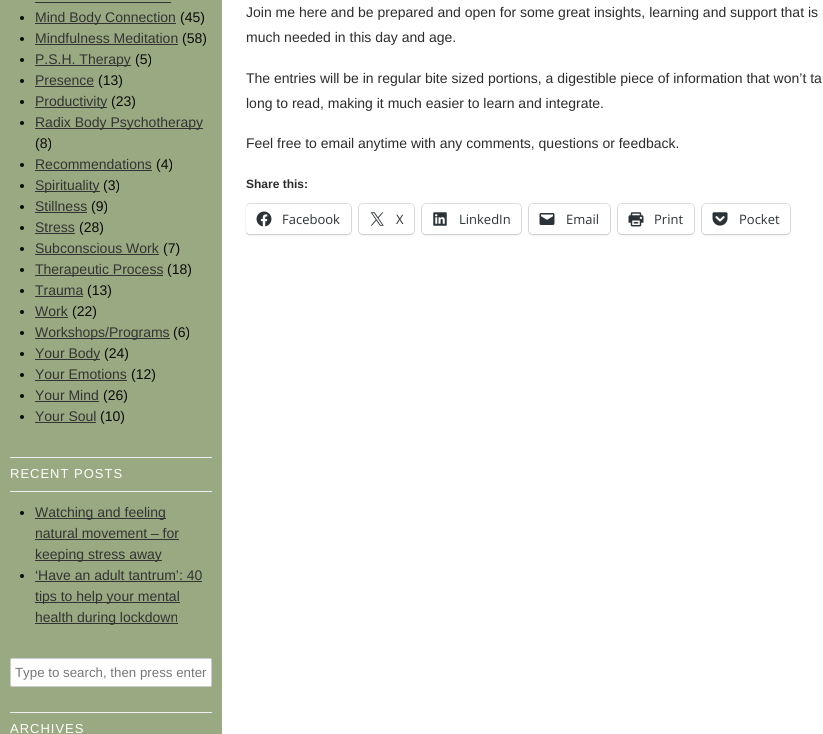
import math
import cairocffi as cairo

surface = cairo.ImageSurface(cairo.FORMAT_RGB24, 823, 734)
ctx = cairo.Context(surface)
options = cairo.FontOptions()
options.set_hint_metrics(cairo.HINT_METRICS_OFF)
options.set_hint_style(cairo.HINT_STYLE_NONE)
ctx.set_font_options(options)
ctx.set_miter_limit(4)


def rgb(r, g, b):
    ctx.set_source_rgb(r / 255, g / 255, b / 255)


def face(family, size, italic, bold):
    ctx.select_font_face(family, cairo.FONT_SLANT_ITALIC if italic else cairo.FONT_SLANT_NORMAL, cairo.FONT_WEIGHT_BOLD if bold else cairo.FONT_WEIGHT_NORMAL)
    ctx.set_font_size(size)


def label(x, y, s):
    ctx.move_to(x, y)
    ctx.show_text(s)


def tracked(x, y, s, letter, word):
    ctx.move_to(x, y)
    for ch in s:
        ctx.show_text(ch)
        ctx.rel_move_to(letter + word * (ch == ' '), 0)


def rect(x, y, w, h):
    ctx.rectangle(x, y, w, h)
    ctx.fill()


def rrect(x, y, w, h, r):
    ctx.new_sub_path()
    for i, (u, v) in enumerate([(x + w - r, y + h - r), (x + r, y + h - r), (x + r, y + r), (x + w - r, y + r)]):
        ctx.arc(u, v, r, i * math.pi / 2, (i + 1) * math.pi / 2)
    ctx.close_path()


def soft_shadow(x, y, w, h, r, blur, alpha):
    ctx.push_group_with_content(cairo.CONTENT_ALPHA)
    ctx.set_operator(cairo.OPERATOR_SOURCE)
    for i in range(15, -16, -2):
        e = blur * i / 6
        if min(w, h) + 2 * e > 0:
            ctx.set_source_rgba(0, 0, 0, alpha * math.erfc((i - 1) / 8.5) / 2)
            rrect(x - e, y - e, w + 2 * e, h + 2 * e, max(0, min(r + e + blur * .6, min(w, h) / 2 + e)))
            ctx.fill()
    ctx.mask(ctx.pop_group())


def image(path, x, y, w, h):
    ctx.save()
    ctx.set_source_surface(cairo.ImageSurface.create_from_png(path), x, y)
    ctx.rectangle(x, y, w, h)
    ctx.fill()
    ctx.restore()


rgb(255, 255, 255)
ctx.paint()
rgb(153, 169, 129)
rect(0, 0, 222, 734)
rgb(51, 51, 51)
rect(35, 2, 136, 1)
rgb(11, 10, 10)
ctx.arc(22, 18, 2, 0, 2 * math.pi)
ctx.fill()
rgb(51, 51, 51)
rect(35, 23, 141, 1)
face('Liberation Sans', 14, 0, 0)
label(35, 22, 'Mind Body Connection')
rgb(11, 10, 10)
label(180, 22, '(45)')
ctx.new_path()
ctx.arc(22, 39, 2, 0, 2 * math.pi)
ctx.fill()
rgb(51, 51, 51)
label(35, 43, 'Mindfulness Meditation')
rect(35, 44, 143, 1)
rgb(11, 10, 10)
label(182, 43, '(58)')
ctx.new_path()
ctx.arc(22, 60, 2, 0, 2 * math.pi)
ctx.fill()
rgb(51, 51, 51)
rect(35, 65, 96, 1)
label(35, 64, 'P.S.H. Therapy')
rgb(11, 10, 10)
label(135, 64, '(5)')
ctx.new_path()
ctx.arc(22, 81, 2, 0, 2 * math.pi)
ctx.fill()
rgb(51, 51, 51)
label(35, 85, 'Presence')
rect(35, 86, 59, 1)
rgb(11, 10, 10)
label(98, 85, '(13)')
ctx.new_path()
ctx.arc(22, 102, 2, 0, 2 * math.pi)
ctx.fill()
rgb(51, 51, 51)
rect(35, 107, 72, 1)
label(35, 106, 'Productivity')
rgb(11, 10, 10)
label(111, 106, '(23)')
ctx.new_path()
ctx.arc(22, 123, 2, 0, 2 * math.pi)
ctx.fill()
rgb(51, 51, 51)
rect(35, 128, 168, 1)
label(35, 127, 'Radix Body Psychotherapy')
rgb(11, 10, 10)
label(35, 148, '(8)')
ctx.new_path()
ctx.arc(22, 165, 2, 0, 2 * math.pi)
ctx.fill()
rgb(51, 51, 51)
label(35, 169, 'Recommendations')
rect(35, 170, 117, 1)
rgb(11, 10, 10)
label(156, 169, '(4)')
ctx.new_path()
ctx.arc(22, 186, 2, 0, 2 * math.pi)
ctx.fill()
rgb(51, 51, 51)
rect(35, 191, 65, 1)
label(35, 190, 'Spirituality')
rgb(11, 10, 10)
label(103, 190, '(3)')
ctx.new_path()
ctx.arc(22, 207, 2, 0, 2 * math.pi)
ctx.fill()
rgb(51, 51, 51)
label(35, 211, 'Stillness')
rect(35, 212, 52, 1)
rgb(11, 10, 10)
label(91, 211, '(9)')
ctx.new_path()
ctx.arc(22, 228, 2, 0, 2 * math.pi)
ctx.fill()
rgb(51, 51, 51)
label(35, 232, 'Stress')
rect(35, 233, 40, 1)
rgb(11, 10, 10)
label(79, 232, '(28)')
ctx.new_path()
ctx.arc(22, 249, 2, 0, 2 * math.pi)
ctx.fill()
rgb(51, 51, 51)
label(35, 253, 'Subconscious Work')
rect(35, 254, 124, 1)
rgb(11, 10, 10)
label(163, 253, '(7)')
ctx.new_path()
ctx.arc(22, 270, 2, 0, 2 * math.pi)
ctx.fill()
rgb(51, 51, 51)
rect(35, 275, 128, 1)
label(35, 274, 'Therapeutic Process')
rgb(11, 10, 10)
label(167, 274, '(18)')
ctx.new_path()
ctx.arc(22, 291, 2, 0, 2 * math.pi)
ctx.fill()
rgb(51, 51, 51)
label(35, 295, 'Trauma')
rect(35, 296, 48, 1)
rgb(11, 10, 10)
label(87, 295, '(13)')
ctx.new_path()
ctx.arc(22, 312, 2, 0, 2 * math.pi)
ctx.fill()
rgb(51, 51, 51)
label(35, 316, 'Work')
rect(35, 317, 33, 1)
rgb(11, 10, 10)
label(72, 316, '(22)')
ctx.new_path()
ctx.arc(22, 333, 2, 0, 2 * math.pi)
ctx.fill()
rgb(51, 51, 51)
rect(35, 338, 135, 1)
label(35, 337, 'Workshops/Programs')
rgb(11, 10, 10)
label(173, 337, '(6)')
ctx.new_path()
ctx.arc(22, 354, 2, 0, 2 * math.pi)
ctx.fill()
rgb(51, 51, 51)
rect(35, 359, 65, 1)
label(35, 358, 'Your Body')
rgb(11, 10, 10)
label(104, 358, '(24)')
ctx.new_path()
ctx.arc(22, 375, 2, 0, 2 * math.pi)
ctx.fill()
rgb(51, 51, 51)
label(35, 379, 'Your Emotions')
rect(35, 380, 92, 1)
rgb(11, 10, 10)
label(131, 379, '(12)')
ctx.new_path()
ctx.arc(22, 396, 2, 0, 2 * math.pi)
ctx.fill()
rgb(51, 51, 51)
label(35, 400, 'Your Mind')
rect(35, 401, 64, 1)
rgb(11, 10, 10)
label(103, 400, '(26)')
ctx.new_path()
ctx.arc(22, 417, 2, 0, 2 * math.pi)
ctx.fill()
rgb(51, 51, 51)
label(35, 421, 'Your Soul')
rect(35, 422, 61, 1)
rgb(11, 10, 10)
label(100, 421, '(10)')
rgb(238, 238, 238)
rect(10, 457, 202, 1)
rect(10, 491, 202, 1)
face('Liberation Sans', 13, 0, 0)
rgb(255, 255, 255)
tracked(10, 478, 'RECENT POSTS', 1, 0)
rgb(11, 10, 10)
ctx.new_path()
ctx.arc(22, 513, 2, 0, 2 * math.pi)
ctx.fill()
rgb(51, 51, 51)
rect(35, 518, 131, 1)
face('Liberation Sans', 14, 0, 0)
label(35, 517, 'Watching and feeling')
label(35, 538, 'natural movement – for')
rect(35, 539, 144, 1)
rect(35, 560, 127, 1)
label(35, 559, 'keeping stress away')
rgb(11, 10, 10)
ctx.new_path()
ctx.arc(22, 576, 2, 0, 2 * math.pi)
ctx.fill()
rgb(51, 51, 51)
label(35, 580, '‘Have an adult tantrum’: 40')
rect(35, 581, 167, 1)
rect(35, 602, 145, 1)
label(35, 601, 'tips to help your mental')
rect(35, 623, 143, 1)
label(35, 622, 'health during lockdown')
rgb(255, 255, 255)
rrect(10.5, 658.5, 201, 28, 1.5)
ctx.fill_preserve()
rgb(204, 204, 204)
ctx.set_line_width(1)
ctx.stroke()
face('Liberation Sans', 13.3, 0, 0)
rgb(119, 119, 119)
label(15, 677, 'Type to search, then press enter')
rgb(238, 238, 238)
rect(10, 712, 202, 1)
face('Liberation Sans', 13, 0, 0)
rgb(255, 255, 255)
tracked(10, 733, 'ARCHIVES', 1, 0)
face('Liberation Sans', 14, 0, 0)
rgb(46, 43, 43)
label(246, 17, 'Join me here and be prepared and open for some great insights, learning and support that is')
label(246, 42, 'much needed in this day and age.')
label(246, 83, 'The entries will be in regular bite sized portions, a digestible piece of information that won’t ta')
label(246, 108, 'long to read, making it much easier to learn and integrate.')
label(246, 148, 'Feel free to email anytime with any comments, questions or feedback.')
face('Liberation Sans', 12, 0, 1)
label(246, 188, 'Share this:')
ctx.save()
ctx.rectangle(246, 0, 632, 306)
ctx.clip()
rrect(245.5, 203.5, 106, 31, 4.5)
rgb(224, 224, 224)
ctx.stroke()
ctx.restore()
rgb(0, 0, 0)
soft_shadow(246, 205, 105, 30, 4, 1, 0.12)
rgb(255, 255, 255)
rrect(246, 204, 105, 30, 4)
ctx.fill()
image('image0.png', 256, 211, 16, 16)
face('Open Sans', 13, 0, 0)
rgb(44, 51, 56)
label(282, 224, 'Facebook')
rrect(358.5, 203.5, 56, 31, 4.5)
rgb(224, 224, 224)
ctx.stroke()
rgb(0, 0, 0)
soft_shadow(359, 205, 55, 30, 4, 1, 0.12)
rgb(255, 255, 255)
rrect(359, 204, 55, 30, 4)
ctx.fill()
image('image1.png', 370, 212, 14, 14)
rgb(44, 51, 56)
label(396, 224, 'X')
rrect(421.5, 203.5, 100, 31, 4.5)
rgb(224, 224, 224)
ctx.stroke()
rgb(0, 0, 0)
soft_shadow(422, 205, 99, 30, 4, 1, 0.12)
rgb(255, 255, 255)
rrect(422, 204, 99, 30, 4)
ctx.fill()
image('image2.png', 433, 212, 14, 14)
rgb(44, 51, 56)
label(459, 224, 'LinkedIn')
rrect(528.5, 203.5, 82, 31, 4.5)
rgb(224, 224, 224)
ctx.stroke()
rgb(0, 0, 0)
soft_shadow(529, 205, 81, 30, 4, 1, 0.12)
rgb(255, 255, 255)
rrect(529, 204, 81, 30, 4)
ctx.fill()
image('image3.png', 539, 213, 16, 12)
rgb(44, 51, 56)
label(566, 224, 'Email')
rrect(617.5, 203.5, 77, 31, 4.5)
rgb(224, 224, 224)
ctx.stroke()
rgb(0, 0, 0)
soft_shadow(618, 205, 76, 30, 4, 1, 0.12)
rgb(255, 255, 255)
rrect(618, 204, 76, 30, 4)
ctx.fill()
image('image4.png', 628, 212, 16, 15)
rgb(44, 51, 56)
label(654, 224, 'Print')
rrect(701.5, 203.5, 89, 31, 4.5)
rgb(224, 224, 224)
ctx.stroke()
rgb(0, 0, 0)
soft_shadow(702, 205, 88, 30, 4, 1, 0.12)
rgb(255, 255, 255)
rrect(702, 204, 88, 30, 4)
ctx.fill()
image('image5.png', 712, 212, 16, 14)
rgb(44, 51, 56)
label(739, 224, 'Pocket')
surface.write_to_png('render.png')
